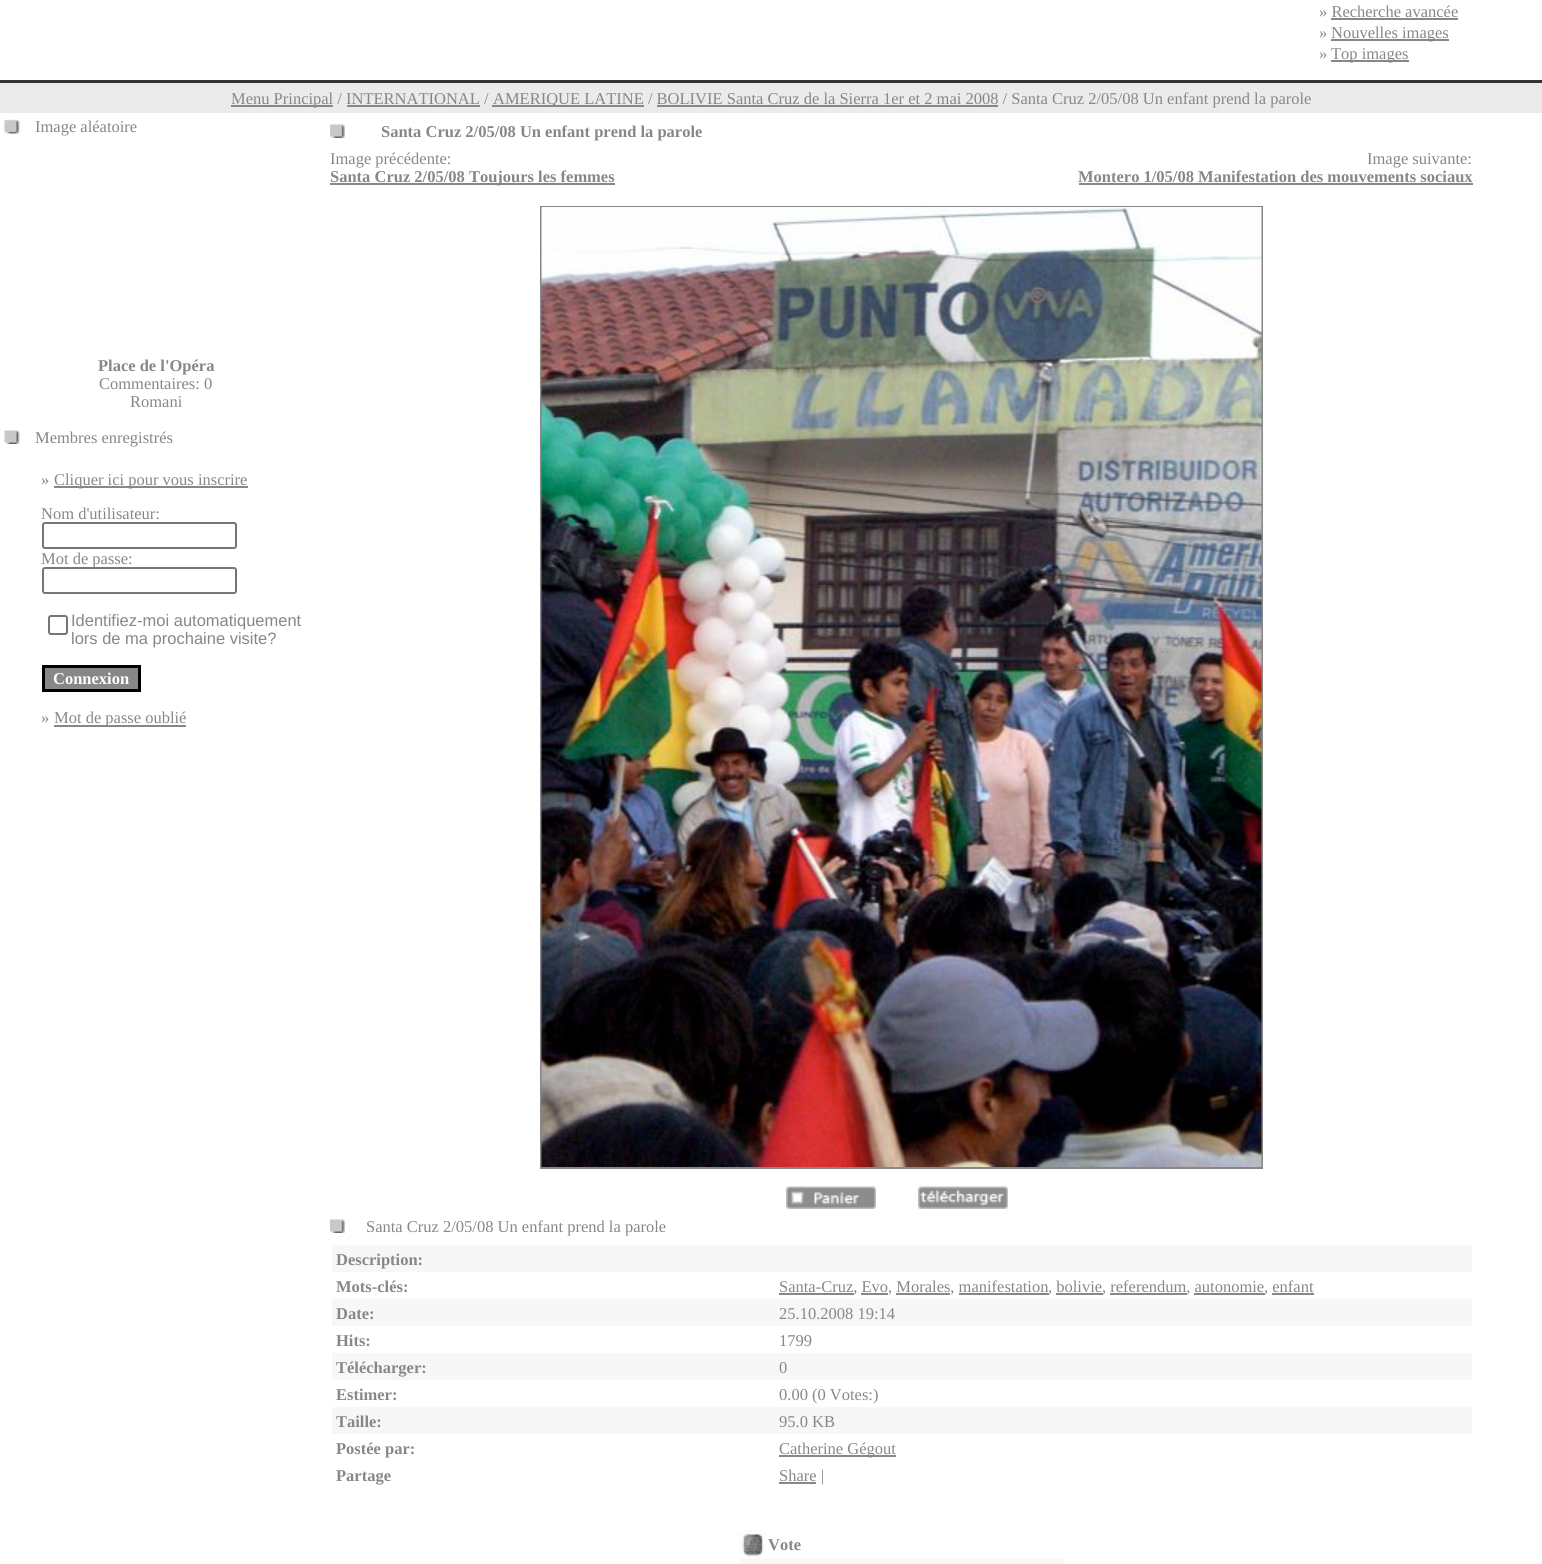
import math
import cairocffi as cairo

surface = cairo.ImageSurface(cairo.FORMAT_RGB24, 1542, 1564)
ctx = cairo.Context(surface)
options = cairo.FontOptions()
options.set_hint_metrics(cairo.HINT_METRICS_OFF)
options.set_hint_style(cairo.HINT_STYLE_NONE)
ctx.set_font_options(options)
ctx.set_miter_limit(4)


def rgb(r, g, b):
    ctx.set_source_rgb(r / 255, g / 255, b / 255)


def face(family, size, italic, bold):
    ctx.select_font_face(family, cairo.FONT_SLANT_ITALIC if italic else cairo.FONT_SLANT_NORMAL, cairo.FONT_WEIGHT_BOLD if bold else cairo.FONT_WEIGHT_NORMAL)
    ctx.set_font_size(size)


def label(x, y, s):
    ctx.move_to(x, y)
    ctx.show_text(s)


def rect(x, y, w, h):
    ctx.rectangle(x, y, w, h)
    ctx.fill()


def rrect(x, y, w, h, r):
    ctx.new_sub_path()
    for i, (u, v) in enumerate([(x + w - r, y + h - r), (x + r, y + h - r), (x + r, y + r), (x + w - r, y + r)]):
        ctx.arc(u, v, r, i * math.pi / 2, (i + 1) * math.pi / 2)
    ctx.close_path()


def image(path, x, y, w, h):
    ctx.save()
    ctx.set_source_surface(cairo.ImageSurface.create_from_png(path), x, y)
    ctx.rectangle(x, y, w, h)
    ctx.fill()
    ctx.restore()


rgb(255, 255, 255)
ctx.paint()
face('Liberation Serif', 16.5, 0, 0)
rgb(135, 135, 135)
label(1319, 17, '» Recherche avancée')
rect(1331, 18, 127, 2)
label(1319, 38, '»')
rect(1331, 39, 118, 2)
label(1331, 38, 'Nouvelles images')
label(1319, 59, '»')
rect(1331, 60, 78, 2)
label(1331, 59, 'Top images')
rgb(51, 51, 51)
rect(0, 80, 1542, 3)
rgb(235, 235, 235)
rect(0, 83, 1542, 30)
rgb(135, 135, 135)
rect(231, 105, 102, 2)
label(231, 104, 'Menu Principal / INTERNATIONAL /')
rect(347, 105, 133, 2)
rect(492, 105, 152, 2)
label(493, 104, 'AMERIQUE LATINE / BOLIVIE Santa Cruz de la Sierra 1er et 2 mai 2008 / Santa Cruz 2/05/08 Un enfant prend la parole')
rect(657, 105, 341, 2)
image('image0.png', 4, 119, 16, 15)
label(35, 132, 'Image aléatoire')
face('Liberation Serif', 16.5, 0, 1)
label(98, 371, 'Place de l\'Opéra')
face('Liberation Serif', 16.5, 0, 0)
label(99, 389, 'Commentaires: 0')
label(130, 407, 'Romani')
image('image1.png', 4, 430, 16, 14)
label(35, 443, 'Membres enregistrés')
label(41, 485, '»')
rect(54, 486, 194, 2)
label(54, 485, 'Cliquer ici pour vous inscrire')
label(41, 519, 'Nom d\'utilisateur:')
rrect(43, 523, 193, 25, 2)
rgb(118, 118, 118)
ctx.stroke()
rgb(135, 135, 135)
label(41, 564, 'Mot de passe:')
rgb(255, 255, 255)
rrect(43, 568, 193, 25, 2)
ctx.fill_preserve()
rgb(118, 118, 118)
ctx.stroke()
rrect(49, 616, 18, 18, 2)
ctx.stroke()
face('Liberation Sans', 16.5, 0, 0)
rgb(135, 135, 135)
label(71, 626, 'Identifiez-moi automatiquement')
label(71, 644, 'lors de ma prochaine visite?')
ctx.rectangle(43.5, 666.5, 96, 24)
ctx.fill_preserve()
rgb(0, 0, 0)
ctx.set_line_width(3)
ctx.stroke()
face('Liberation Serif', 16.5, 0, 1)
rgb(255, 255, 255)
label(53, 684, 'Connexion')
face('Liberation Serif', 16.5, 0, 0)
rgb(135, 135, 135)
label(41, 723, '»')
rect(54, 725, 132, 2)
label(54, 723, 'Mot de passe oublié')
image('image2.png', 330, 124, 15, 14)
face('Liberation Serif', 16.5, 0, 1)
label(381, 137, 'Santa Cruz 2/05/08 Un enfant prend la parole')
face('Liberation Serif', 16.5, 0, 0)
label(330, 164, 'Image précédente:')
rect(330, 183, 285, 2)
face('Liberation Serif', 16.5, 0, 1)
label(330, 182, 'Santa Cruz 2/05/08 Toujours les femmes')
face('Liberation Serif', 16.5, 0, 0)
label(1367, 164, 'Image suivante:')
face('Liberation Serif', 16.5, 0, 1)
label(1078, 182, 'Montero 1/05/08 Manifestation des mouvements sociaux')
rect(1079, 183, 394, 2)
ctx.rectangle(541, 207, 721, 961)
ctx.set_line_width(2)
ctx.stroke()
image('image3.png', 541, 207, 721, 960)
image('image4.png', 786, 1186, 90, 23)
image('image5.png', 918, 1186, 90, 23)
image('image2.png', 330, 1219, 15, 14)
face('Liberation Serif', 16.5, 0, 0)
label(366, 1232, 'Santa Cruz 2/05/08 Un enfant prend la parole')
rgb(247, 247, 247)
rect(332, 1245, 1140, 27)
face('Liberation Serif', 16.5, 0, 1)
rgb(135, 135, 135)
label(336, 1265, 'Description:')
label(336, 1292, 'Mots-clés:')
rect(779, 1293, 75, 2)
face('Liberation Serif', 16.5, 0, 0)
label(779, 1292, 'Santa-Cruz, Evo, Morales, manifestation')
rect(959, 1293, 90, 2)
label(1048, 1292, ', bolivie')
rect(1056, 1293, 47, 2)
label(1102, 1292, ', referendum, autonomie')
rect(1194, 1293, 71, 2)
label(1264, 1292, ', enfant')
rect(861, 1293, 27, 2)
rect(896, 1293, 54, 2)
rect(1110, 1293, 77, 2)
rect(1272, 1293, 42, 2)
rgb(247, 247, 247)
rect(332, 1299, 1140, 27)
face('Liberation Serif', 16.5, 0, 1)
rgb(135, 135, 135)
label(336, 1319, 'Date:')
face('Liberation Serif', 16.5, 0, 0)
label(779, 1319, '25.10.2008 19:14')
face('Liberation Serif', 16.5, 0, 1)
label(336, 1346, 'Hits:')
face('Liberation Serif', 16.5, 0, 0)
label(779, 1346, '1799')
rgb(247, 247, 247)
rect(332, 1353, 1140, 27)
face('Liberation Serif', 16.5, 0, 1)
rgb(135, 135, 135)
label(336, 1373, 'Télécharger:')
face('Liberation Serif', 16.5, 0, 0)
label(779, 1373, '0')
face('Liberation Serif', 16.5, 0, 1)
label(336, 1400, 'Estimer:')
face('Liberation Serif', 16.5, 0, 0)
label(779, 1400, '0.00 (0 Votes:)')
rgb(247, 247, 247)
rect(332, 1407, 1140, 27)
face('Liberation Serif', 16.5, 0, 1)
rgb(135, 135, 135)
label(336, 1427, 'Taille:')
face('Liberation Serif', 16.5, 0, 0)
label(779, 1427, '95.0 KB')
face('Liberation Serif', 16.5, 0, 1)
label(336, 1454, 'Postée par:')
rect(779, 1455, 117, 2)
face('Liberation Serif', 16.5, 0, 0)
label(779, 1454, 'Catherine Gégout')
face('Liberation Serif', 16.5, 0, 1)
label(336, 1481, 'Partage')
rect(779, 1482, 37, 2)
face('Liberation Serif', 16.5, 0, 0)
label(779, 1481, 'Share |')
image('image6.png', 738, 1530, 26, 27)
face('Liberation Serif', 16.5, 0, 1)
label(768, 1550, 'Vote')
image('image7.png', 738, 1557, 25, 7)
rgb(247, 247, 247)
rect(740, 1559, 324, 5)
surface.write_to_png('render.png')
